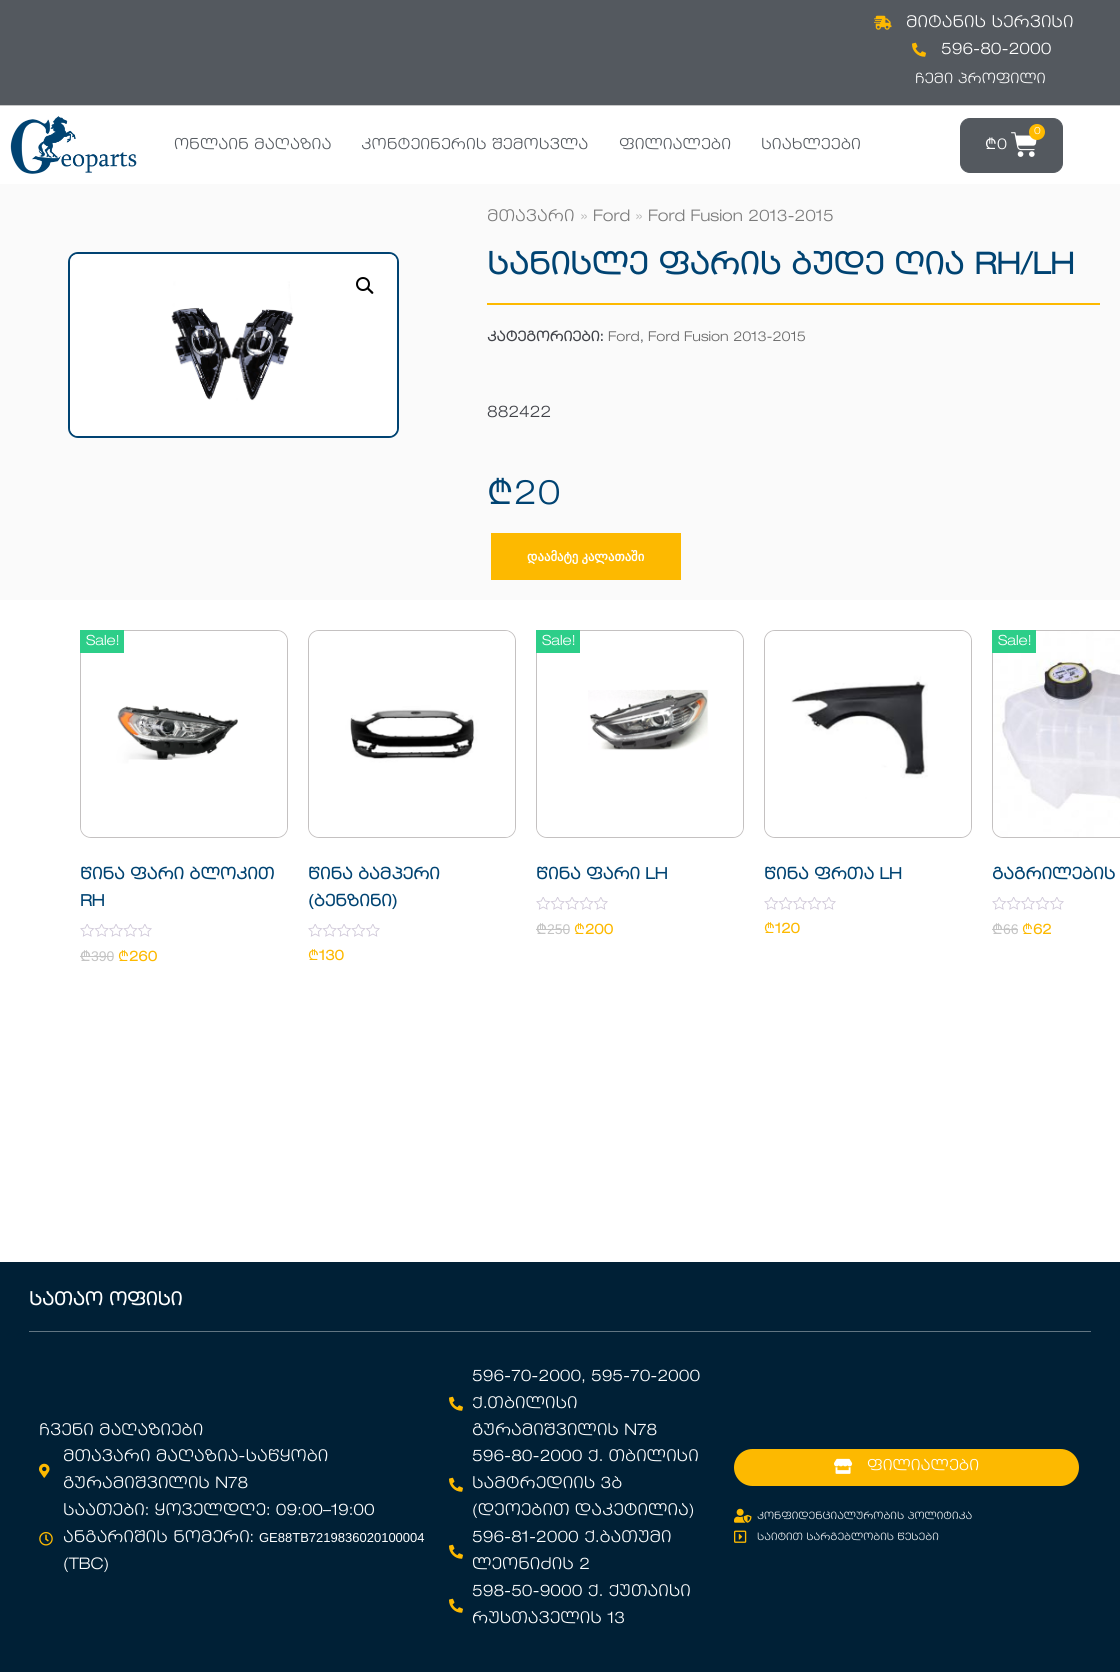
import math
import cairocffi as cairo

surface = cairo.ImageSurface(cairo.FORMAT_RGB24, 1120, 1672)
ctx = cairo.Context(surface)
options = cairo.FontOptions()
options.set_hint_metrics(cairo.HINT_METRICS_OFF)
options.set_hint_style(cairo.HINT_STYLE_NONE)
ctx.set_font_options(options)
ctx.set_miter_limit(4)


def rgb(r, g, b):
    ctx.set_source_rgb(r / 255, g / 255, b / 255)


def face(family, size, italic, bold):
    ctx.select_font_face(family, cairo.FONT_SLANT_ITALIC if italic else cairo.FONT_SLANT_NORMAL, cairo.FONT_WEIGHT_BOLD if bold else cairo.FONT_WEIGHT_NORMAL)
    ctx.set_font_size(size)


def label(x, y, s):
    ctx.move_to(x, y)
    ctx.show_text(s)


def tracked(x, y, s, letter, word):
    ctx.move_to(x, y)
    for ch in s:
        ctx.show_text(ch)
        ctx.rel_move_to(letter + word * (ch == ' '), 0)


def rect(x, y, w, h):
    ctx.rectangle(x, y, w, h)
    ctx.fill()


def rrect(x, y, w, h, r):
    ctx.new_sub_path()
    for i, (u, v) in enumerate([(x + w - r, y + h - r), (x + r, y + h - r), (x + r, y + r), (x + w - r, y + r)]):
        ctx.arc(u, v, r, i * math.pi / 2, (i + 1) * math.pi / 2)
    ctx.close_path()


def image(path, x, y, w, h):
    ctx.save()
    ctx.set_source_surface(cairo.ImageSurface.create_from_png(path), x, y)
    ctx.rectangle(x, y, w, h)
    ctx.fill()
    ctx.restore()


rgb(255, 255, 255)
ctx.paint()
rgb(84, 89, 95)
rect(0, 0, 1120, 105)
rgb(200, 200, 200)
rect(0, 105, 1120, 1)
image('image0.png', 874, 15, 18, 15)
face('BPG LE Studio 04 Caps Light', 16, 0, 0)
rgb(255, 255, 255)
label(906, 27, 'მიტანის სერვისი')
image('image1.png', 912, 42, 14, 15)
label(941, 54, '596-80-2000')
face('BPG LE Studio 04 Caps Light', 14, 0, 0)
label(915, 83, 'ჩემი პროფილი')
image('image2.png', 10, 116, 127, 58)
face('BPG LE Studio 04 Caps Light', 15, 0, 0)
rgb(84, 89, 95)
label(174, 149, 'ონლაინ მაღაზია')
label(361, 149, 'კონტეინერის შემოსვლა')
label(619, 149, 'ფილიალები')
label(761, 149, 'სიახლეები')
rrect(960.5, 118.5, 102, 54, 9.5)
ctx.fill_preserve()
ctx.set_line_width(1)
ctx.stroke()
image('image3.png', 1011, 132, 26, 25)
rgb(255, 186, 0)
ctx.arc(1037, 132, 8, 0, 2 * math.pi)
ctx.fill()
face('BPG LE Studio 04 Caps Light', 10, 0, 0)
rgb(255, 255, 255)
label(1034, 134, '0')
face('Noto Sans', 15, 0, 0)
label(985, 149, '₾')
face('BPG LE Studio 04 Caps Light', 15, 0, 0)
label(997, 149, '0')
rgb(250, 250, 250)
rect(0, 184, 1120, 416)
rrect(69, 253, 329, 184, 9)
rgb(0, 67, 114)
ctx.set_line_width(2)
ctx.stroke()
image('image4.png', 70, 254, 327, 182)
ctx.arc(363, 284, 6, 0, 2 * math.pi)
rgb(0, 0, 0)
ctx.stroke()
ctx.new_path()
ctx.move_to(367.5, 288)
ctx.curve_to(368.5, 287, 370.5, 289.5, 371, 290)
ctx.curve_to(371.5, 290.5, 374.5, 292.5, 373, 293.5)
ctx.curve_to(372, 295, 370, 292, 369.5, 291.5)
ctx.curve_to(369, 291, 366, 289, 367.5, 288)
ctx.close_path()
ctx.fill()
face('BPG LE Studio 04 Caps Light', 16, 0, 0)
rgb(122, 122, 122)
label(487, 221, 'მთავარი')
rgb(186, 186, 186)
label(580, 221, '»')
rgb(122, 122, 122)
label(593, 221, 'Ford')
rgb(186, 186, 186)
label(635, 221, '»')
rgb(122, 122, 122)
label(648, 221, 'Ford Fusion 2013-2015')
face('BPG LE Studio 04 Caps', 30, 0, 1)
rgb(0, 67, 114)
label(487, 274, 'სანისლე ფარის ბუდე ღია RH/LH')
rgb(253, 185, 0)
rect(487, 303, 613, 2)
face('BPG LE Studio 04 Caps', 13.6, 0, 1)
rgb(64, 66, 72)
label(487, 341, 'კატეგორიები:')
face('BPG LE Studio 04 Caps Light', 13.6, 0, 0)
rgb(103, 103, 103)
label(608, 341, 'Ford')
rgb(64, 66, 72)
label(640, 341, ',')
rgb(103, 103, 103)
label(648, 341, 'Ford Fusion 2013-2015')
face('BPG LE Studio 04 Caps Light', 16, 0, 0)
rgb(64, 66, 72)
label(487, 417, '882422')
face('Noto Sans', 34, 0, 0)
rgb(0, 67, 114)
tracked(487, 504, '₾', 1, 0)
face('BPG LE Studio 04 Caps Light', 34, 0, 0)
tracked(514, 504, '20', 1, 0)
rgb(253, 185, 0)
rect(491, 533, 190, 47)
face('DejaVu Sans', 12.75, 0, 1)
rgb(255, 255, 255)
tracked(527, 561, 'დაამატე კალათაში', 0, -1)
rrect(80.5, 630.5, 207, 207, 10.5)
rgb(196, 193, 193)
ctx.set_line_width(1)
ctx.stroke()
image('image5.png', 81, 631, 206, 206)
rgb(45, 206, 137)
rect(80, 630, 44, 23)
face('BPG LE Studio 04 Caps Light', 14, 0, 0)
rgb(255, 255, 255)
label(86, 645, 'Sale!')
face('BPG LE Studio 04 Caps', 16, 0, 1)
rgb(0, 67, 114)
label(80, 879, 'წინა ფარი ბლოკით')
label(80, 906, 'RH')
image('image6.png', 80, 924, 72, 13)
face('Noto Sans Medium', 14, 0, 0)
rgb(196, 196, 196)
label(80, 961, '₾')
face('Liberation Sans', 14, 0, 0)
label(91, 961, '390')
rect(80, 956, 11, 1)
rect(91, 956, 22, 1)
face('Noto Sans', 14, 0, 0)
rgb(253, 185, 0)
label(118, 961, '₾')
face('BPG LE Studio 04 Caps', 14, 0, 1)
label(129, 961, '260')
rrect(308.5, 630.5, 207, 207, 10.5)
rgb(196, 193, 193)
ctx.stroke()
image('image7.png', 309, 631, 206, 206)
face('BPG LE Studio 04 Caps', 16, 0, 1)
rgb(0, 67, 114)
label(308, 879, 'წინა ბამპერი')
label(308, 906, '(ბენზინი)')
image('image6.png', 308, 924, 72, 13)
face('Noto Sans', 14, 0, 0)
rgb(253, 185, 0)
label(308, 960, '₾')
face('BPG LE Studio 04 Caps', 14, 0, 1)
label(319, 960, '130')
rrect(536.5, 630.5, 207, 207, 10.5)
rgb(196, 193, 193)
ctx.stroke()
image('image8.png', 537, 631, 206, 206)
rgb(45, 206, 137)
rect(536, 630, 44, 23)
face('BPG LE Studio 04 Caps Light', 14, 0, 0)
rgb(255, 255, 255)
label(542, 645, 'Sale!')
face('BPG LE Studio 04 Caps', 16, 0, 1)
rgb(0, 67, 114)
label(536, 879, 'წინა ფარი LH')
image('image6.png', 536, 897, 72, 13)
face('Noto Sans Medium', 14, 0, 0)
rgb(196, 196, 196)
label(536, 934, '₾')
face('Liberation Sans', 14, 0, 0)
label(547, 934, '250')
rect(536, 929, 11, 1)
rect(547, 929, 22, 1)
face('Noto Sans', 14, 0, 0)
rgb(253, 185, 0)
label(574, 934, '₾')
face('BPG LE Studio 04 Caps', 14, 0, 1)
label(585, 934, '200')
rrect(764.5, 630.5, 207, 207, 10.5)
rgb(196, 193, 193)
ctx.stroke()
image('image9.png', 765, 631, 206, 206)
face('BPG LE Studio 04 Caps', 16, 0, 1)
rgb(0, 67, 114)
label(764, 879, 'წინა ფრთა LH')
image('image6.png', 764, 897, 72, 13)
face('Noto Sans', 14, 0, 0)
rgb(253, 185, 0)
label(764, 933, '₾')
face('BPG LE Studio 04 Caps', 14, 0, 1)
label(775, 933, '120')
rrect(992.5, 630.5, 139, 207, 10.5)
rgb(196, 193, 193)
ctx.stroke()
image('image10.png', 993, 631, 127, 206)
rgb(45, 206, 137)
rect(992, 630, 44, 23)
face('BPG LE Studio 04 Caps Light', 14, 0, 0)
rgb(255, 255, 255)
label(998, 645, 'Sale!')
face('BPG LE Studio 04 Caps', 16, 0, 1)
rgb(0, 67, 114)
label(992, 879, 'გაგრილების')
image('image6.png', 992, 897, 72, 13)
face('Noto Sans Medium', 14, 0, 0)
rgb(196, 196, 196)
label(992, 934, '₾')
face('Liberation Sans', 14, 0, 0)
label(1003, 934, '66')
rect(992, 929, 11, 1)
rect(1003, 929, 15, 1)
face('Noto Sans', 14, 0, 0)
rgb(253, 185, 0)
label(1022, 934, '₾')
face('BPG LE Studio 04 Caps', 14, 0, 1)
label(1033, 934, '62')
rgb(0, 32, 54)
rect(0, 1262, 1120, 410)
face('BPG LE Studio 04 Caps', 18, 0, 1)
rgb(255, 255, 255)
label(29, 1305, 'სათაო ოფისი')
rgb(97, 117, 130)
rect(29, 1331, 1062, 1)
face('BPG LE Studio 04 Caps Light', 16, 0, 0)
rgb(255, 255, 255)
label(39, 1435, 'ჩვენი მაღაზიები')
image('image11.png', 39, 1463, 11, 15)
label(63, 1461, 'მთავარი მაღაზია-საწყობი')
label(63, 1488, 'გურამიშვილის N78')
image('image12.png', 39, 1532, 14, 14)
label(63, 1515, 'საათები: ყოველდღე: 09:00–19:00')
label(63, 1542, 'ანგარიშის ნომერი:')
face('Liberation Sans', 13, 0, 0)
label(259, 1542, 'GE88TB7219836020100004')
face('BPG LE Studio 04 Caps Light', 16, 0, 0)
label(63, 1569, '(TBC)')
image('image13.png', 449, 1396, 14, 15)
label(472, 1381, '596-70-2000, 595-70-2000')
label(472, 1408, 'ქ.თბილისი')
label(472, 1435, 'გურამიშვილის N78')
image('image13.png', 449, 1477, 14, 15)
label(472, 1461, '596-80-2000 ქ. თბილისი')
label(472, 1488, 'სამტრედიის 3ბ')
label(472, 1515, '(დეოებით დაკეტილია)')
image('image13.png', 449, 1544, 14, 15)
label(472, 1542, '596-81-2000 ქ.ბათუმი')
label(472, 1569, 'ლეონიძის 2')
image('image13.png', 449, 1598, 14, 15)
label(472, 1596, '598-50-9000 ქ. ქუთაისი')
label(472, 1623, 'რუსთაველის 13')
rgb(253, 185, 0)
rrect(734, 1449, 345, 37, 18.5)
ctx.fill()
image('image14.png', 834, 1458, 19, 16)
face('BPG LE Studio 04 Caps Light', 15, 0, 0)
rgb(255, 255, 255)
label(867, 1470, 'ფილიალები')
image('image15.png', 734, 1508, 18, 15)
face('BPG LE Studio 04 Caps Light', 10, 0, 0)
label(757, 1519, 'კონფიდენციალურობის პოლიტიკა')
image('image16.png', 734, 1530, 13, 13)
label(757, 1540, 'საიტით სარგებლობის წესები')
surface.write_to_png('render.png')
